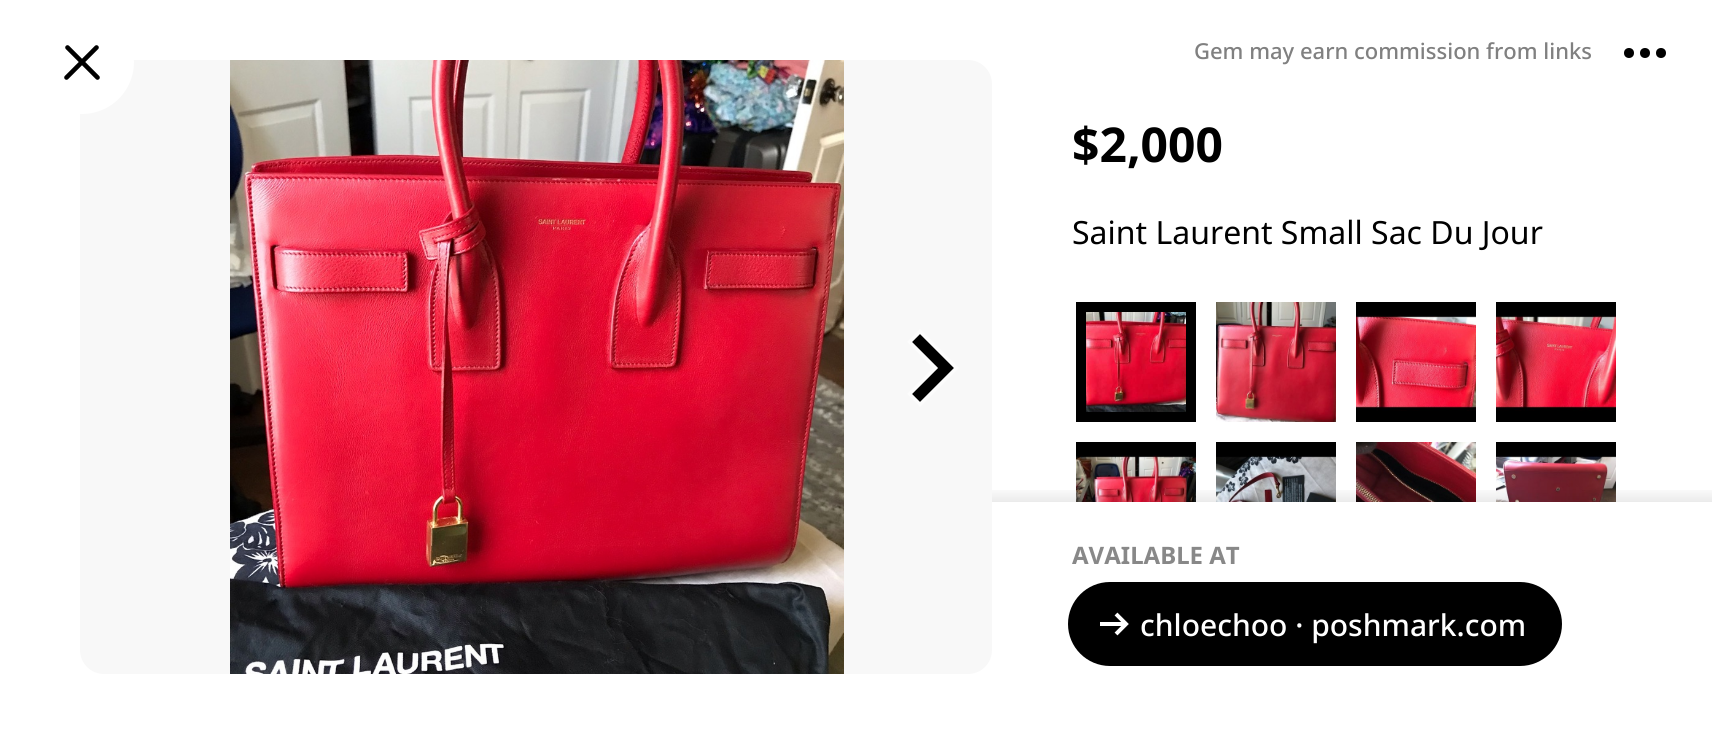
import math
import cairocffi as cairo

surface = cairo.ImageSurface(cairo.FORMAT_RGB24, 1712, 734)
ctx = cairo.Context(surface)
options = cairo.FontOptions()
options.set_hint_metrics(cairo.HINT_METRICS_OFF)
options.set_hint_style(cairo.HINT_STYLE_NONE)
ctx.set_font_options(options)
ctx.set_miter_limit(4)


def rgb(r, g, b):
    ctx.set_source_rgb(r / 255, g / 255, b / 255)


def face(family, size, italic, bold):
    ctx.select_font_face(family, cairo.FONT_SLANT_ITALIC if italic else cairo.FONT_SLANT_NORMAL, cairo.FONT_WEIGHT_BOLD if bold else cairo.FONT_WEIGHT_NORMAL)
    ctx.set_font_size(size)


def label(x, y, s):
    ctx.move_to(x, y)
    ctx.show_text(s)


def rect(x, y, w, h):
    ctx.rectangle(x, y, w, h)
    ctx.fill()


def rrect(x, y, w, h, r):
    ctx.new_sub_path()
    for i, (u, v) in enumerate([(x + w - r, y + h - r), (x + r, y + h - r), (x + r, y + r), (x + w - r, y + r)]):
        ctx.arc(u, v, r, i * math.pi / 2, (i + 1) * math.pi / 2)
    ctx.close_path()


def image(path, x, y, w, h):
    ctx.save()
    ctx.set_source_surface(cairo.ImageSurface.create_from_png(path), x, y)
    ctx.rectangle(x, y, w, h)
    ctx.fill()
    ctx.restore()


rgb(255, 255, 255)
ctx.paint()
rgb(248, 248, 248)
rrect(80, 60, 912, 614, 24)
ctx.fill()
rgb(255, 255, 255)
ctx.arc(82, 62, 52, 0, 2 * math.pi)
ctx.fill()
ctx.new_path()
ctx.move_to(66.5, 77.5)
ctx.line_to(96.5, 47.5)
ctx.move_to(97.5, 77.5)
ctx.line_to(67.5, 47.5)
rgb(0, 0, 0)
ctx.set_line_width(4.6)
ctx.set_line_cap(cairo.LINE_CAP_ROUND)
ctx.stroke()
face('Noto Sans Medium', 22, 0, 0)
rgb(128, 128, 128)
label(1194, 59, 'Gem may earn commission from links')
rgb(0, 0, 0)
ctx.new_path()
ctx.arc(1629, 53, 5, 0, 2 * math.pi)
ctx.fill()
ctx.arc(1645, 53, 5, 0, 2 * math.pi)
ctx.fill()
ctx.arc(1661, 53, 5, 0, 2 * math.pi)
ctx.fill()
image('image0.png', 230, 60, 614, 614)
ctx.new_path()
ctx.move_to(920, 342)
ctx.line_to(946, 368)
ctx.line_to(920, 394)
rgb(252, 252, 252)
ctx.set_line_width(18.2)
ctx.set_line_cap(cairo.LINE_CAP_SQUARE)
ctx.stroke()
ctx.new_path()
ctx.move_to(920, 342)
ctx.line_to(946, 368)
ctx.line_to(920, 394)
rgb(0, 0, 0)
ctx.set_line_width(11.2)
ctx.stroke()
face('Noto Sans', 48, 0, 1)
label(1072, 162, '$2,000')
face('Noto Sans', 32, 0, 0)
label(1072, 244, 'Saint Laurent Small Sac Du Jour')
image('image1.png', 1086, 312, 100, 100)
ctx.rectangle(1081, 307, 110, 110)
ctx.set_line_width(10)
ctx.set_line_cap(cairo.LINE_CAP_BUTT)
ctx.stroke()
image('image2.png', 1216, 302, 120, 120)
image('image3.png', 1356, 302, 120, 120)
image('image4.png', 1496, 302, 120, 120)
image('image5.png', 1076, 442, 120, 60)
image('image6.png', 1216, 442, 120, 60)
image('image7.png', 1356, 442, 120, 60)
image('image8.png', 1496, 442, 120, 60)
gradient = cairo.LinearGradient(1352, 486, 1352, 502)
gradient.add_color_stop_rgba(0, 0, 0, 0, 0)
gradient.add_color_stop_rgba(1, 0, 0, 0, 0.08)
ctx.set_source(gradient)
rect(992, 490, 720, 12)
face('Noto Sans', 24, 0, 1)
rgb(136, 136, 136)
label(1072, 564, 'AVAILABLE AT')
rgb(0, 0, 0)
rrect(1068, 582, 494, 84, 42)
ctx.fill()
ctx.new_path()
ctx.move_to(1100, 624)
ctx.line_to(1126, 624)
ctx.move_to(1116, 614)
ctx.line_to(1126, 624)
ctx.line_to(1116, 634)
rgb(255, 255, 255)
ctx.set_line_width(4)
ctx.stroke()
face('Noto Sans Medium', 30, 0, 0)
label(1140, 636, 'chloechoo · poshmark.com')
surface.write_to_png('render.png')
